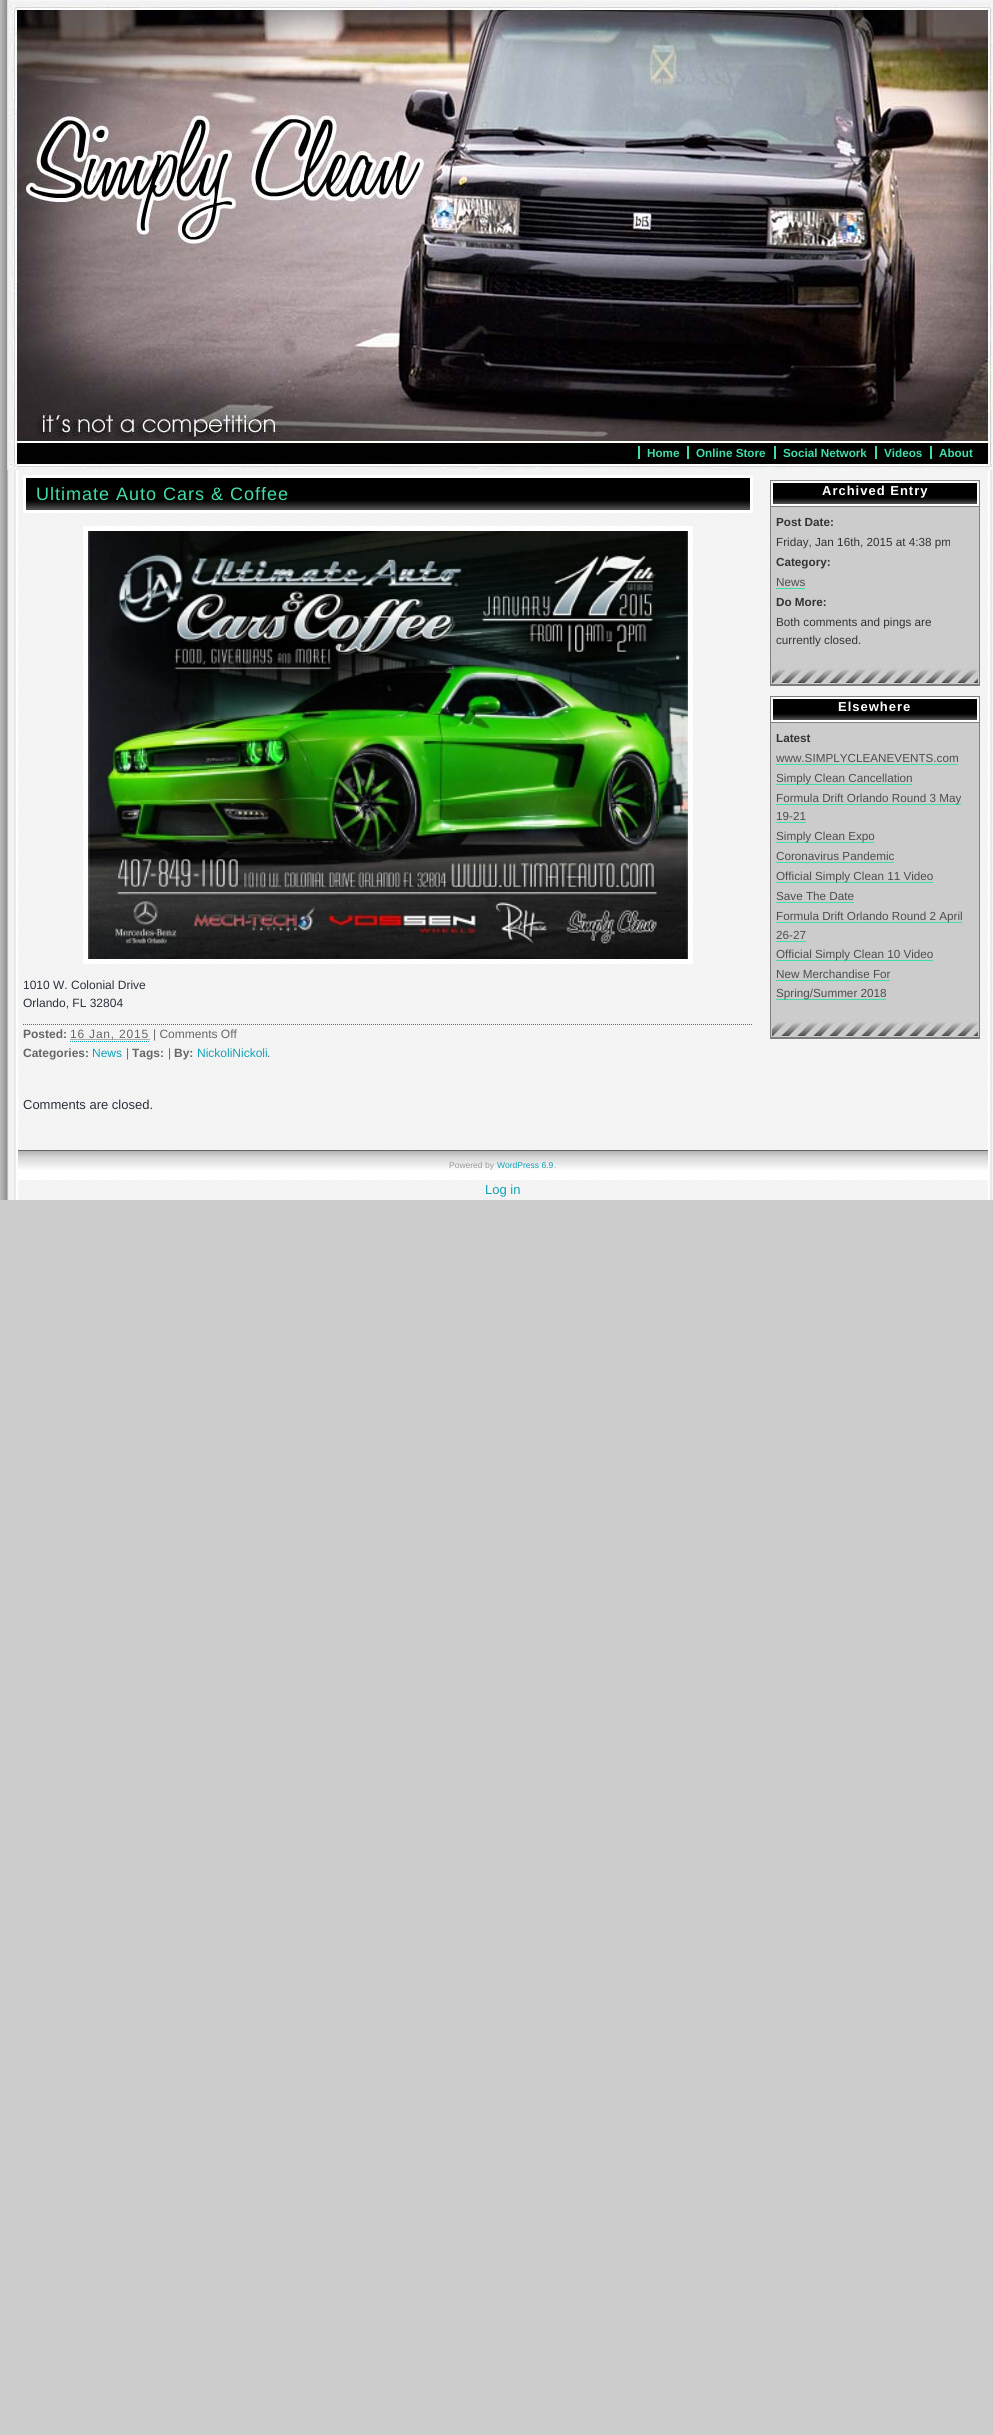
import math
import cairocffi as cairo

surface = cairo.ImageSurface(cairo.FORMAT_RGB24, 993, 2435)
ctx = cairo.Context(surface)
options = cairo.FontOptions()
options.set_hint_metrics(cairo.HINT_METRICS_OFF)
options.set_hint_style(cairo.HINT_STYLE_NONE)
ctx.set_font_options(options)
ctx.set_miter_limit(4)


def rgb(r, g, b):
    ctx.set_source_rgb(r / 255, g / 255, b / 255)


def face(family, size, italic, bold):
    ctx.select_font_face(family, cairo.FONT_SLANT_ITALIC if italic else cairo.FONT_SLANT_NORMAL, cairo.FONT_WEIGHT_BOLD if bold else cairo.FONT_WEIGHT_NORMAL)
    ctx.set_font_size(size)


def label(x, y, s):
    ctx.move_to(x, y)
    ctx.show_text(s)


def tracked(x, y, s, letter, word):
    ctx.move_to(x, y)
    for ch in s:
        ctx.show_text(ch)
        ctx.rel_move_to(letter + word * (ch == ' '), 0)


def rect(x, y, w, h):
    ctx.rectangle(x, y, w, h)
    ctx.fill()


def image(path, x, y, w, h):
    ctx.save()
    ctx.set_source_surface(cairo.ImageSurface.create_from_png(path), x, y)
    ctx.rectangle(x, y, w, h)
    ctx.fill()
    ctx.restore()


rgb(204, 204, 204)
ctx.paint()
rgb(242, 242, 242)
rect(992, 470, 1, 730)
image('image0.png', 0, 0, 992, 1200)
image('image1.png', 7, 0, 986, 470)
face('Liberation Sans', 11.7, 0, 1)
rgb(65, 222, 172)
label(647, 457, 'Home')
rect(638, 446, 2, 13)
label(696, 457, 'Online Store')
rect(687, 446, 2, 13)
label(783, 457, 'Social Network')
rect(774, 446, 2, 13)
label(884, 457, 'Videos')
rect(875, 446, 2, 13)
label(939, 457, 'About')
rect(930, 446, 2, 13)
image('image2.png', 19, 470, 968, 730)
rgb(77, 77, 77)
rect(26, 508, 724, 2)
image('image3.png', 26, 478, 724, 30)
ctx.rectangle(24.5, 476.5, 727, 35)
rgb(255, 255, 255)
ctx.set_line_width(3)
ctx.stroke()
face('Liberation Sans', 18, 0, 0)
rgb(65, 222, 172)
tracked(36, 500, 'Ultimate Auto Cars & Coffee', 1, 0)
ctx.rectangle(85.5, 528.5, 605, 433)
rgb(255, 255, 255)
ctx.set_line_width(5)
ctx.stroke()
image('image4.png', 88, 531, 600, 428)
face('Liberation Sans', 12, 0, 0)
rgb(41, 48, 59)
label(23, 989, '1010 W. Colonial Drive')
label(23, 1007, 'Orlando, FL 32804')
ctx.new_path()
ctx.move_to(23, 1024.5)
ctx.line_to(753, 1024.5)
rgb(102, 102, 102)
ctx.set_line_width(1)
ctx.set_dash([1, 1])
ctx.stroke()
face('Liberation Sans', 12, 0, 1)
label(23, 1038, 'Posted:')
ctx.new_path()
ctx.move_to(70.5, 1039.5)
ctx.line_to(150, 1039.5)
ctx.stroke()
face('Liberation Sans', 12, 0, 0)
tracked(70, 1038, '16 Jan, 2015', 0.8, 0)
ctx.new_path()
ctx.move_to(70, 1041.5)
ctx.line_to(150, 1041.5)
rgb(15, 161, 184)
ctx.stroke()
rgb(102, 102, 102)
label(153, 1038, '| Comments Off')
face('Liberation Sans', 12, 0, 1)
label(23, 1057, 'Categories:')
face('Liberation Sans', 12, 0, 0)
rgb(15, 161, 184)
label(92, 1057, 'News')
rgb(102, 102, 102)
label(126, 1057, '|')
face('Liberation Sans', 12, 0, 1)
label(132, 1057, 'Tags:')
face('Liberation Sans', 12, 0, 0)
label(168, 1057, '|')
face('Liberation Sans', 12, 0, 1)
label(174, 1057, 'By:')
face('Liberation Sans', 12, 0, 0)
rgb(15, 161, 184)
label(197, 1057, 'NickoliNickoli')
rgb(102, 102, 102)
label(267, 1057, '.')
face('Liberation Sans', 13, 0, 0)
rgb(41, 48, 59)
label(23, 1109, 'Comments are closed.')
image('image5.png', 770, 480, 210, 26)
face('Liberation Sans', 13, 0, 1)
rgb(255, 255, 255)
tracked(822, 495, 'Archived Entry', 1, 0)
rgb(204, 204, 204)
rect(771, 507, 208, 159)
image('image6.png', 771, 666, 208, 19)
ctx.rectangle(770.5, 506.5, 209, 179)
rgb(127, 127, 127)
ctx.set_dash([])
ctx.stroke()
face('Liberation Sans', 11.7, 0, 1)
rgb(51, 51, 51)
label(776, 526, 'Post Date:')
face('Liberation Sans', 11.7, 0, 0)
label(776, 546, 'Friday, Jan 16th, 2015 at 4:38 pm')
face('Liberation Sans', 11.7, 0, 1)
label(776, 566, 'Category:')
face('Liberation Sans', 11.7, 0, 0)
rgb(77, 77, 77)
label(776, 586, 'News')
rgb(65, 222, 172)
rect(776, 588, 29, 1)
face('Liberation Sans', 11.7, 0, 1)
rgb(51, 51, 51)
label(776, 606, 'Do More:')
face('Liberation Sans', 11.7, 0, 0)
label(776, 626, 'Both comments and pings are')
label(776, 644, 'currently closed.')
image('image5.png', 770, 696, 210, 26)
face('Liberation Sans', 13, 0, 1)
rgb(255, 255, 255)
tracked(838, 711, 'Elsewhere', 1, 0)
rgb(204, 204, 204)
rect(771, 723, 208, 296)
image('image6.png', 771, 1019, 208, 19)
ctx.rectangle(770.5, 722.5, 209, 316)
rgb(127, 127, 127)
ctx.stroke()
face('Liberation Sans', 11.7, 0, 1)
rgb(51, 51, 51)
label(776, 742, 'Latest')
face('Liberation Sans', 11.7, 0, 0)
rgb(77, 77, 77)
label(776, 762, 'www.SIMPLYCLEANEVENTS.com')
rgb(65, 222, 172)
rect(776, 764, 182, 1)
rect(776, 784, 136, 1)
rgb(77, 77, 77)
label(776, 782, 'Simply Clean Cancellation')
rgb(65, 222, 172)
rect(776, 804, 185, 1)
rgb(77, 77, 77)
label(776, 802, 'Formula Drift Orlando Round 3 May')
label(776, 820, '19-21')
rgb(65, 222, 172)
rect(776, 822, 30, 1)
rect(776, 842, 98, 1)
rgb(77, 77, 77)
label(776, 840, 'Simply Clean Expo')
label(776, 860, 'Coronavirus Pandemic')
rgb(65, 222, 172)
rect(776, 862, 118, 1)
rect(776, 882, 157, 1)
rgb(77, 77, 77)
label(776, 880, 'Official Simply Clean 11 Video')
label(776, 900, 'Save The Date')
rgb(65, 222, 172)
rect(776, 902, 78, 1)
rect(776, 922, 186, 1)
rgb(77, 77, 77)
label(776, 920, 'Formula Drift Orlando Round 2 April')
label(776, 939, '26-27')
rgb(65, 222, 172)
rect(776, 941, 30, 1)
rect(776, 960, 157, 1)
rgb(77, 77, 77)
label(776, 958, 'Official Simply Clean 10 Video')
label(776, 978, 'New Merchandise For')
rgb(65, 222, 172)
rect(776, 980, 114, 1)
rect(776, 999, 110, 1)
rgb(77, 77, 77)
label(776, 997, 'Spring/Summer 2018')
rgb(255, 255, 255)
rect(18, 1170, 970, 10)
image('image7.png', 18, 1151, 970, 19)
rgb(102, 102, 102)
rect(18, 1150, 970, 1)
face('Liberation Sans', 8.5, 0, 0)
rgb(153, 153, 153)
label(449, 1168, 'Powered by')
rgb(15, 161, 184)
label(497, 1168, 'WordPress 6.9')
rgb(153, 153, 153)
label(554, 1168, '.')
face('Liberation Sans', 13, 0, 0)
rgb(15, 161, 184)
label(485, 1194, 'Log in')
surface.write_to_png('render.png')
